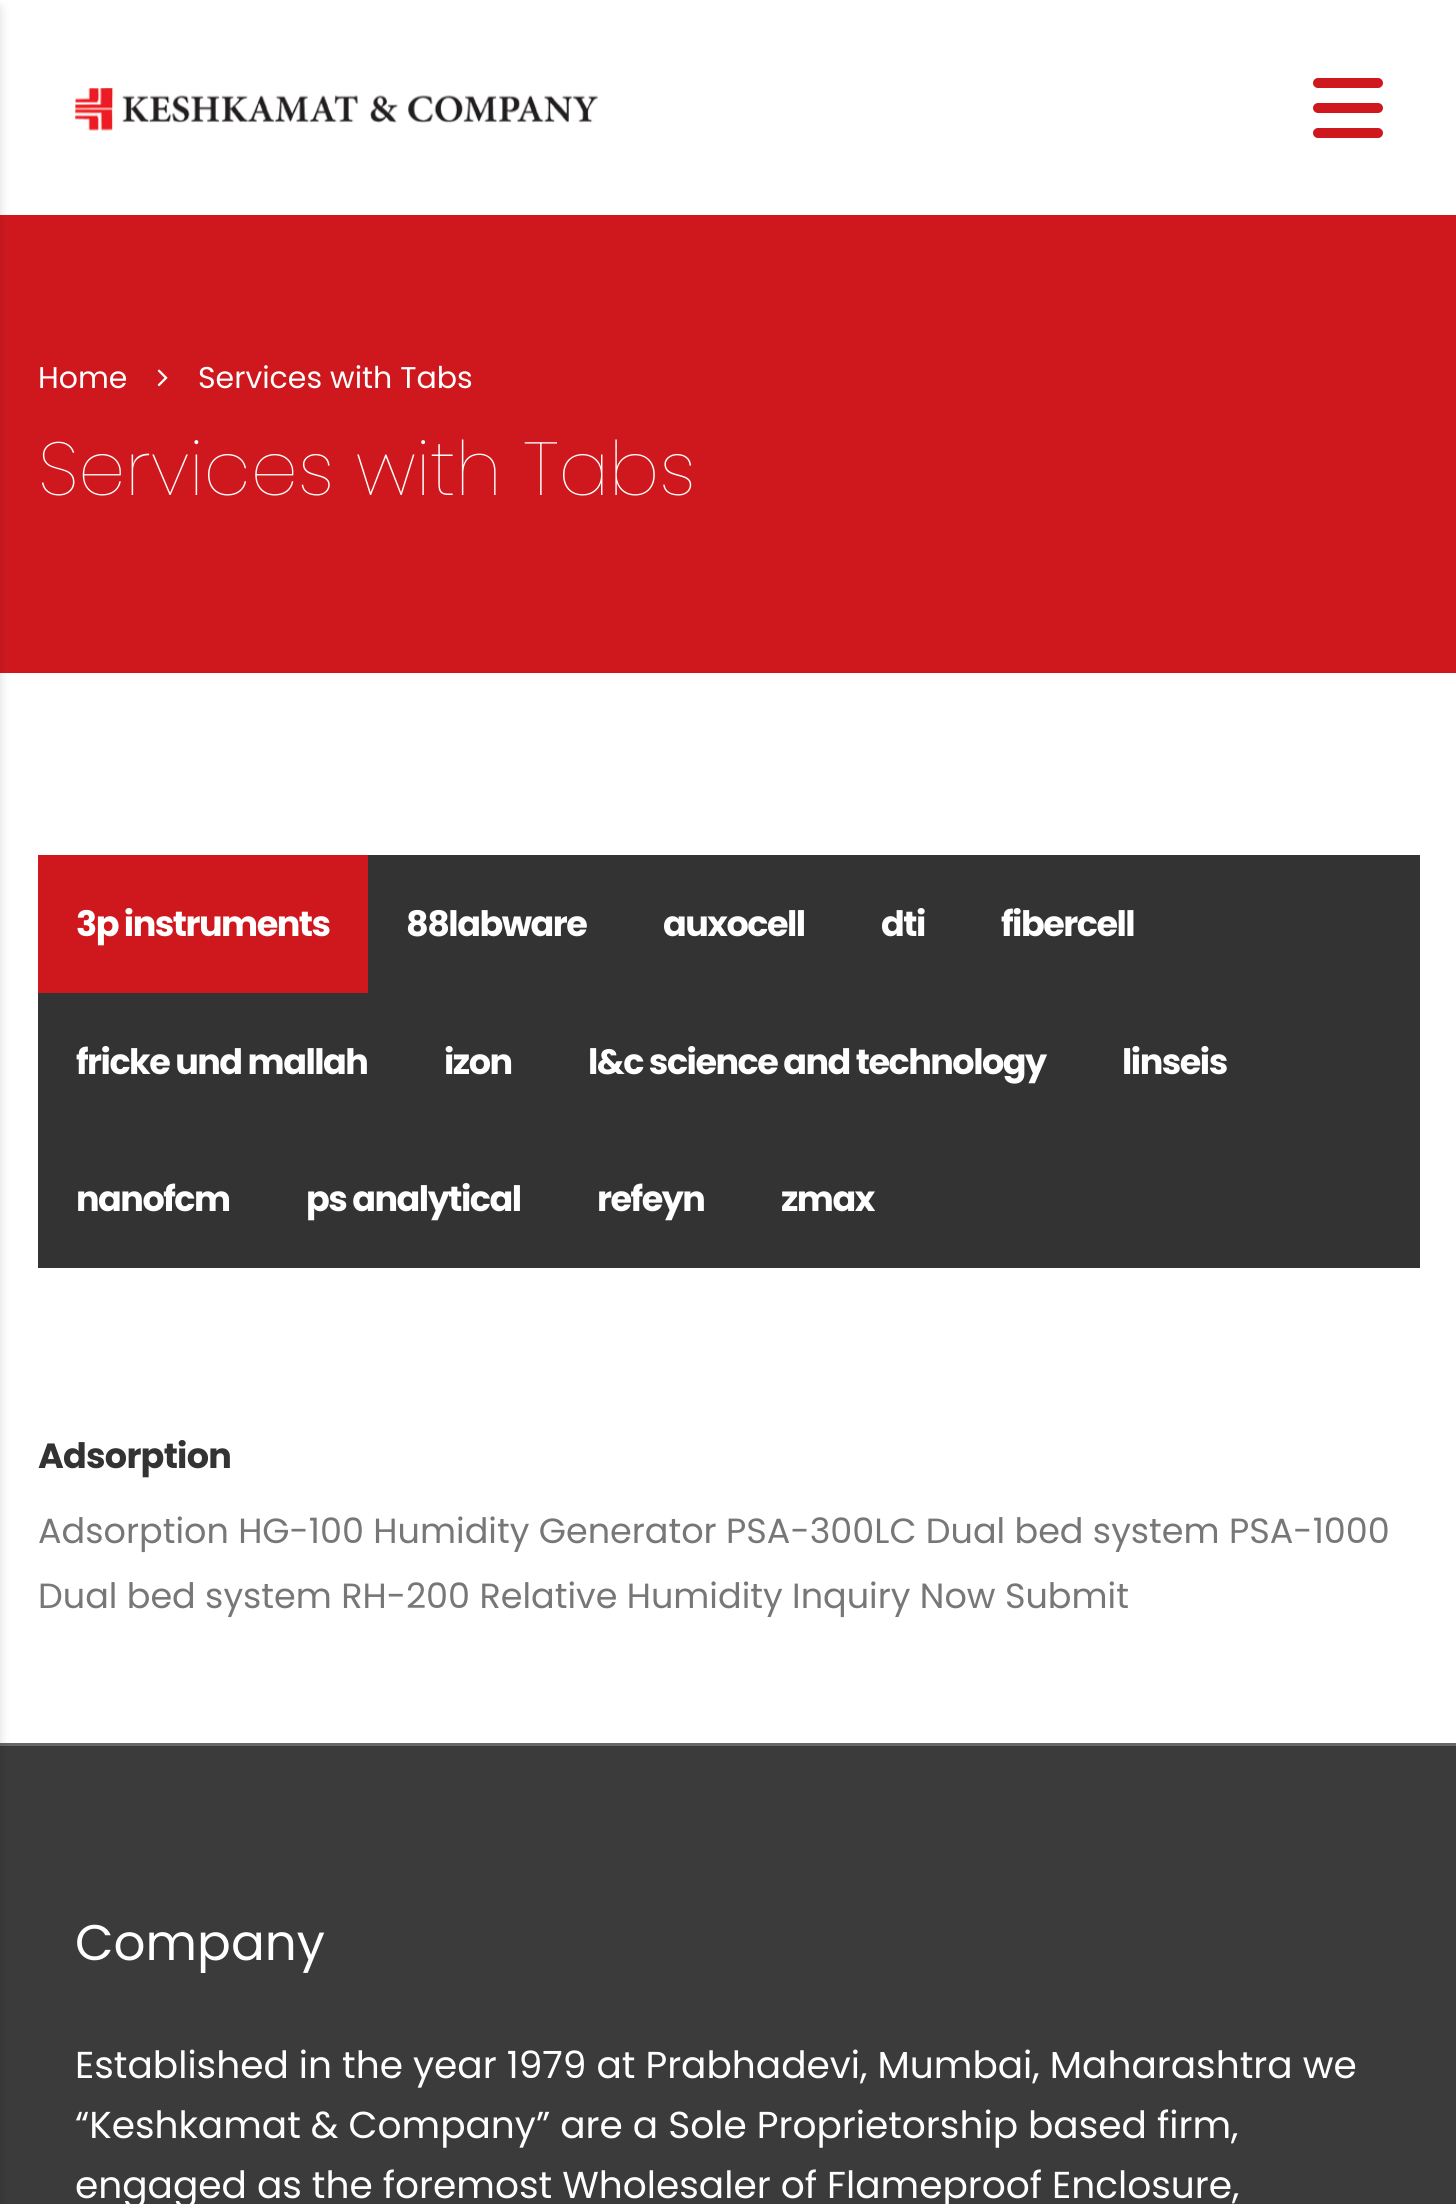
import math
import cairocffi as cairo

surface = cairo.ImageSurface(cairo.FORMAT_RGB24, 1456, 2204)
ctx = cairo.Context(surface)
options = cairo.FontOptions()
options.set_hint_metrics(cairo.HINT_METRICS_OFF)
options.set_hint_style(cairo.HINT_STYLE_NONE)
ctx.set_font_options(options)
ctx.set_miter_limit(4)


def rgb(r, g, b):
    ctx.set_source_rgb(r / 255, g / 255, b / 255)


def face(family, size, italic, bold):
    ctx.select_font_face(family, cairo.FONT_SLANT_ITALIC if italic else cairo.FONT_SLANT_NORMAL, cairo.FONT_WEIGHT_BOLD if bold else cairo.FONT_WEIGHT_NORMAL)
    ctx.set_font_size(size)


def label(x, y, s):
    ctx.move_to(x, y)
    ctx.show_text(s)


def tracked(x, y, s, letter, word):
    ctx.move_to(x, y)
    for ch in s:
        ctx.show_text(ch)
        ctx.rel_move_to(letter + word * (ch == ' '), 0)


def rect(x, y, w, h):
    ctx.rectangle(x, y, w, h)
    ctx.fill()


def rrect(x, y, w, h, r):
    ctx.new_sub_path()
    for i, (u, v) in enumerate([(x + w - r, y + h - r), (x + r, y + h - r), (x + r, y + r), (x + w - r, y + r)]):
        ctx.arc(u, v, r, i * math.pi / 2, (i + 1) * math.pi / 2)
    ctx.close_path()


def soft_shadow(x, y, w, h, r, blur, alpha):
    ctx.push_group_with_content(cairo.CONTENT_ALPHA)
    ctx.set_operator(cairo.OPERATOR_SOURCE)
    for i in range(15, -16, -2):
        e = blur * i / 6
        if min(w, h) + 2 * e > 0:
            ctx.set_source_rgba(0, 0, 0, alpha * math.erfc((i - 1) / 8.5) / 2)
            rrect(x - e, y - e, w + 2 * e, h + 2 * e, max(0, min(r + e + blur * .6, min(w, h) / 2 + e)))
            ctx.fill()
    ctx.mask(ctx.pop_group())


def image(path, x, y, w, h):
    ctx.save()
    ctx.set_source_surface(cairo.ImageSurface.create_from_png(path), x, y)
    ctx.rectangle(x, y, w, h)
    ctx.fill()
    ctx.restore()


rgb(255, 255, 255)
ctx.paint()
rgb(207, 24, 30)
rect(0, 215, 1456, 458)
rgb(59, 59, 59)
rect(0, 1746, 1456, 458)
rgb(104, 104, 104)
rect(0, 1743, 1456, 3)
rgb(0, 0, 0)
soft_shadow(-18, 8, 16, 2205, 0, 6, 0.2)
image('image0.png', 75, 88, 523, 43)
rgb(207, 24, 30)
rrect(1313, 78, 70, 10, 5)
ctx.fill()
rrect(1313, 103, 70, 10, 5)
ctx.fill()
rrect(1313, 128, 70, 10, 5)
ctx.fill()
face('Poppins', 30, 0, 0)
rgb(255, 255, 255)
label(38, 388, 'Home')
image('image1.png', 157, 369, 11, 18)
label(198, 388, 'Services with Tabs')
face('Poppins Thin', 75, 0, 0)
label(38, 495, 'Services with Tabs')
rgb(51, 51, 51)
rect(38, 855, 1382, 413)
rgb(207, 24, 30)
rect(38, 855, 330, 138)
face('Poppins', 35, 0, 1)
rgb(255, 255, 255)
tracked(76, 936, '3p instruments', -1.5, 0)
tracked(406, 936, '88labware', -1.5, 0)
tracked(663, 936, 'auxocell', -1.5, 0)
tracked(881, 936, 'dti', -1.5, 0)
tracked(1001, 936, 'fibercell', -1.5, 0)
tracked(76, 1074, 'fricke und mallah', -1.5, 0)
tracked(444, 1074, 'izon', -1.5, 0)
tracked(588, 1074, 'l&c science and technology', -1.5, 0)
tracked(1122, 1074, 'linseis', -1.5, 0)
tracked(76, 1211, 'nanofcm', -1.5, 0)
tracked(306, 1211, 'ps analytical', -1.5, 0)
tracked(597, 1211, 'refeyn', -1.5, 0)
tracked(781, 1211, 'zmax', -1.5, 0)
rgb(51, 51, 51)
tracked(38, 1468, 'Adsorption', -0.75, 0)
face('Poppins', 35, 0, 0)
rgb(119, 119, 119)
label(38, 1543, 'Adsorption HG-100 Humidity Generator PSA-300LC Dual bed system PSA-1000')
label(38, 1608, 'Dual bed system RH-200 Relative Humidity Inquiry Now Submit')
face('Poppins', 50, 0, 0)
rgb(255, 255, 255)
label(75, 1960, 'Company')
face('Poppins', 37.5, 0, 0)
label(75, 2078, 'Established in the year 1979 at Prabhadevi, Mumbai, Maharashtra we')
label(75, 2138, '“Keshkamat & Company” are a Sole Proprietorship based firm,')
label(75, 2198, 'engaged as the foremost Wholesaler of Flameproof Enclosure,')
surface.write_to_png('render.png')
